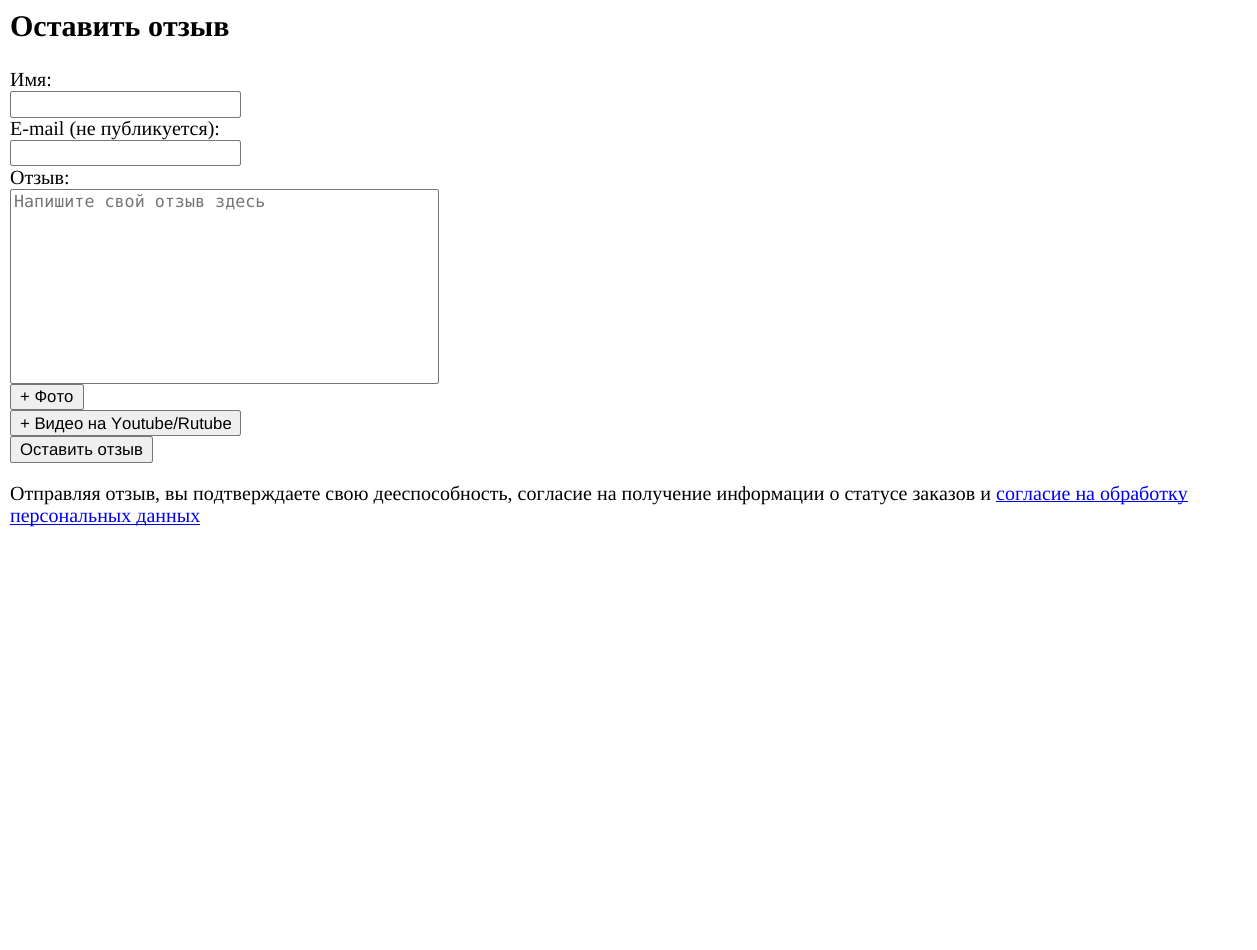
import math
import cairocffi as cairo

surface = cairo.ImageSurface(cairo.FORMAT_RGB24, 1257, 950)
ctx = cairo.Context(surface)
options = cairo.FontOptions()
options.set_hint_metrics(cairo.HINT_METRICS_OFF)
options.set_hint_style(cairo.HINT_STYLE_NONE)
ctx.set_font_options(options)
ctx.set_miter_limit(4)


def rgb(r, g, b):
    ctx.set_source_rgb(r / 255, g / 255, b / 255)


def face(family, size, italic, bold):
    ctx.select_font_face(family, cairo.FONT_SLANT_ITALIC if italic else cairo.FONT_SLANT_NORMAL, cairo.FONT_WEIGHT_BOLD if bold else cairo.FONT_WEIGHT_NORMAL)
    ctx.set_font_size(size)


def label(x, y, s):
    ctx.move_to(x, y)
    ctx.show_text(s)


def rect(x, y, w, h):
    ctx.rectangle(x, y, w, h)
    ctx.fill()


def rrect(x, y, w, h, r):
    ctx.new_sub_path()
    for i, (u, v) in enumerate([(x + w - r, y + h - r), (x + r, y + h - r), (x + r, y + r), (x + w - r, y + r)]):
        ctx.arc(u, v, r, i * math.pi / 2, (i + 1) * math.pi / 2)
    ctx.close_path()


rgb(255, 255, 255)
ctx.paint()
face('Liberation Serif', 30, 0, 1)
rgb(0, 0, 0)
label(10, 36, 'Оставить отзыв')
face('Liberation Serif', 20, 0, 0)
label(10, 86, 'Имя:')
rrect(10.5, 91.5, 230, 26, 2)
rgb(118, 118, 118)
ctx.set_line_width(1)
ctx.stroke()
rgb(0, 0, 0)
label(10, 135, 'E-mail (не публикуется):')
rrect(10.5, 140.5, 230, 25, 2)
rgb(118, 118, 118)
ctx.stroke()
rgb(0, 0, 0)
label(10, 184, 'Отзыв:')
rrect(10.5, 189.5, 428, 194, 2)
rgb(118, 118, 118)
ctx.stroke()
face('DejaVu Sans Mono', 16.7, 0, 0)
rgb(117, 117, 117)
label(14, 207, 'Напишите свой отзыв здесь')
rgb(239, 239, 239)
rrect(10.5, 384.5, 73, 25, 2)
ctx.fill_preserve()
rgb(118, 118, 118)
ctx.stroke()
face('Liberation Sans', 16.7, 0, 0)
rgb(0, 0, 0)
label(20, 402, '+ Фото')
rgb(239, 239, 239)
rrect(10.5, 410.5, 230, 25, 2)
ctx.fill_preserve()
rgb(118, 118, 118)
ctx.stroke()
rgb(0, 0, 0)
label(20, 429, '+ Видео на Youtube/Rutube')
rgb(239, 239, 239)
rrect(10.5, 436.5, 142, 26, 2)
ctx.fill_preserve()
rgb(118, 118, 118)
ctx.stroke()
rgb(0, 0, 0)
label(20, 455, 'Оставить отзыв')
face('Liberation Serif', 20, 0, 0)
label(10, 500, 'Отправляя отзыв, вы подтверждаете свою дееспособность, согласие на получение информации о статусе заказов и')
rgb(0, 0, 238)
rect(996, 501, 192, 1)
label(996, 500, 'согласие на обработку')
rect(10, 524, 190, 1)
label(10, 522, 'персональных данных')
surface.write_to_png('render.png')
